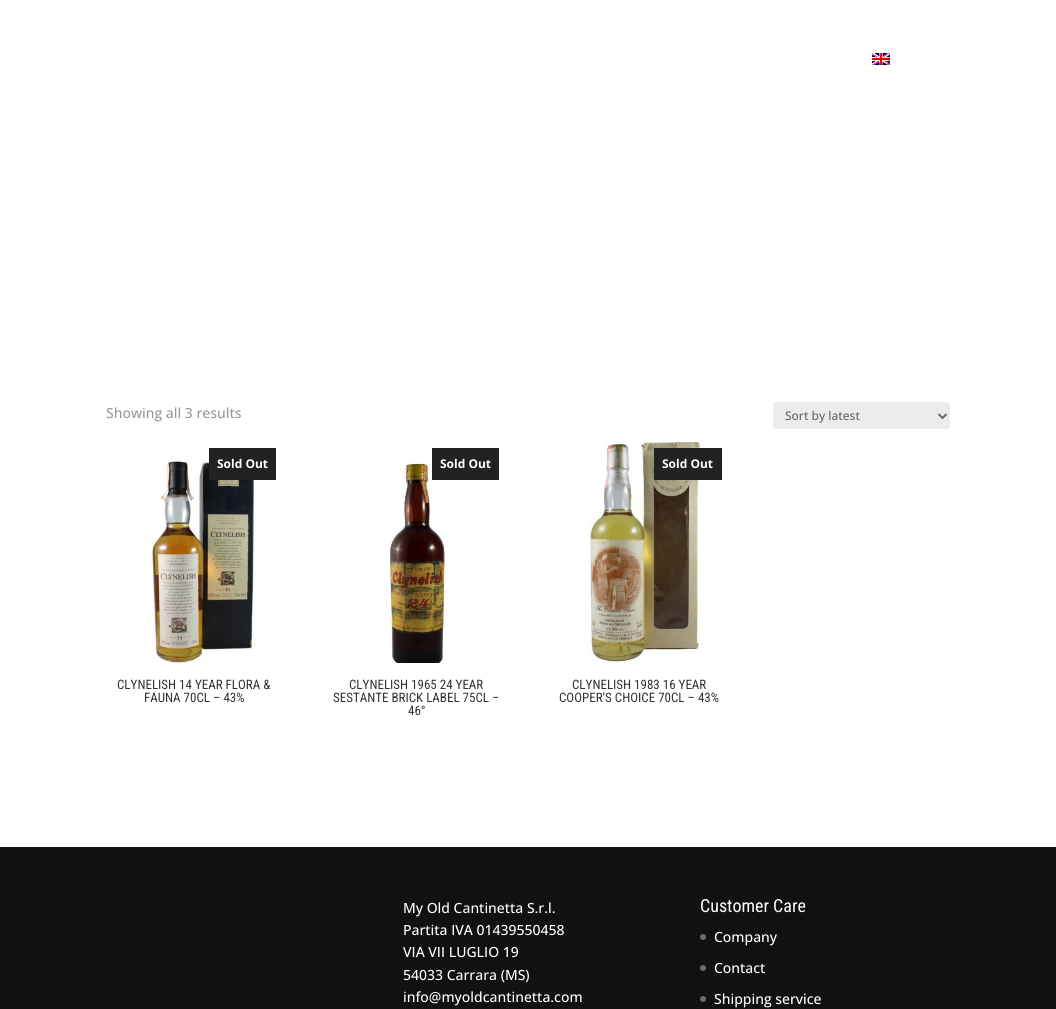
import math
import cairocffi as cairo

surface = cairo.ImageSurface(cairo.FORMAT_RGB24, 1056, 1009)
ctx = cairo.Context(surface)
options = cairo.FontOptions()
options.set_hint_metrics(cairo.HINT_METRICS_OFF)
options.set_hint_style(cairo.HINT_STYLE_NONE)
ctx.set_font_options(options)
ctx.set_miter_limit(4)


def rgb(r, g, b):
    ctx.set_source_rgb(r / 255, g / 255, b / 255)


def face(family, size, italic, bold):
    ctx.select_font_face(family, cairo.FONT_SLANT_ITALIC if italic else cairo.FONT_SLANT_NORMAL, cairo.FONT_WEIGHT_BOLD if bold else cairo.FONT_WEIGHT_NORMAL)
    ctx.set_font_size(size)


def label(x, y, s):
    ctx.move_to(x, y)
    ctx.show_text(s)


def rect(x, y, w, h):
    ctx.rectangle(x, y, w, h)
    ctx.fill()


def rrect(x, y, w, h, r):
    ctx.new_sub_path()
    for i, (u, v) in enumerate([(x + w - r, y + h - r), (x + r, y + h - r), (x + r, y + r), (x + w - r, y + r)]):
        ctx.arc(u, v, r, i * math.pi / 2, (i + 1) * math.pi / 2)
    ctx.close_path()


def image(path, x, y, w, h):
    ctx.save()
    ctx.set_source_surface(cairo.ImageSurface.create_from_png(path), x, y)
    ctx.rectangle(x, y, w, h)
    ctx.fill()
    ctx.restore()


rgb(255, 255, 255)
ctx.paint()
image('image0.png', 872, 53, 18, 12)
face('Open Sans Medium', 14, 0, 0)
rgb(153, 153, 153)
label(106, 418, 'Showing all 3 results')
rgb(236, 236, 236)
rrect(773, 402, 177, 27, 3)
ctx.fill()
ctx.new_path()
ctx.move_to(938.5, 414)
ctx.line_to(942.5, 418)
ctx.line_to(946.5, 414)
rgb(102, 102, 102)
ctx.stroke()
face('Open Sans Medium', 12, 0, 0)
label(785, 420, 'Sort by latest')
image('image1.png', 152, 461, 104, 202)
rgb(34, 34, 34)
rect(209, 448, 67, 32)
face('Open Sans', 12, 0, 1)
rgb(255, 255, 255)
label(217, 468, 'Sold Out')
face('Roboto Condensed', 13, 0, 0)
rgb(51, 51, 51)
label(117, 689, 'CLYNELISH 14 YEAR FLORA &')
label(144, 702, 'FAUNA 70CL – 43%')
image('image2.png', 385, 461, 66, 202)
rgb(34, 34, 34)
rect(432, 448, 67, 32)
face('Open Sans', 12, 0, 1)
rgb(255, 255, 255)
label(440, 468, 'Sold Out')
face('Roboto Condensed', 13, 0, 0)
rgb(51, 51, 51)
label(349, 689, 'CLYNELISH 1965 24 YEAR')
label(333, 702, 'SESTANTE BRICK LABEL 75CL –')
label(408, 715, '46°')
image('image3.png', 589, 442, 113, 221)
rgb(34, 34, 34)
rect(654, 448, 68, 32)
face('Open Sans', 12, 0, 1)
rgb(255, 255, 255)
label(662, 468, 'Sold Out')
face('Roboto Condensed', 13, 0, 0)
rgb(51, 51, 51)
label(572, 689, 'CLYNELISH 1983 16 YEAR')
label(559, 702, 'COOPER’S CHOICE 70CL – 43%')
rgb(17, 17, 17)
rect(0, 847, 1056, 162)
face('Open Sans Medium', 14, 0, 0)
rgb(255, 255, 255)
label(403, 913, 'My Old Cantinetta S.r.l.')
label(403, 935, 'Partita IVA 01439550458')
label(403, 957, 'VIA VII LUGLIO 19')
label(403, 980, '54033 Carrara (MS)')
label(403, 1002, 'info@myoldcantinetta.com')
face('Roboto Condensed', 18, 0, 0)
label(700, 912, 'Customer Care')
rgb(107, 107, 107)
ctx.new_path()
ctx.arc(703, 937, 3, 0, 2 * math.pi)
ctx.fill()
face('Open Sans Medium', 14, 0, 0)
rgb(255, 255, 255)
label(714, 942, 'Company')
rgb(107, 107, 107)
ctx.new_path()
ctx.arc(703, 968, 3, 0, 2 * math.pi)
ctx.fill()
rgb(255, 255, 255)
label(714, 973, 'Contact')
rgb(107, 107, 107)
ctx.new_path()
ctx.arc(703, 999, 3, 0, 2 * math.pi)
ctx.fill()
rgb(255, 255, 255)
label(714, 1004, 'Shipping service')
surface.write_to_png('render.png')
